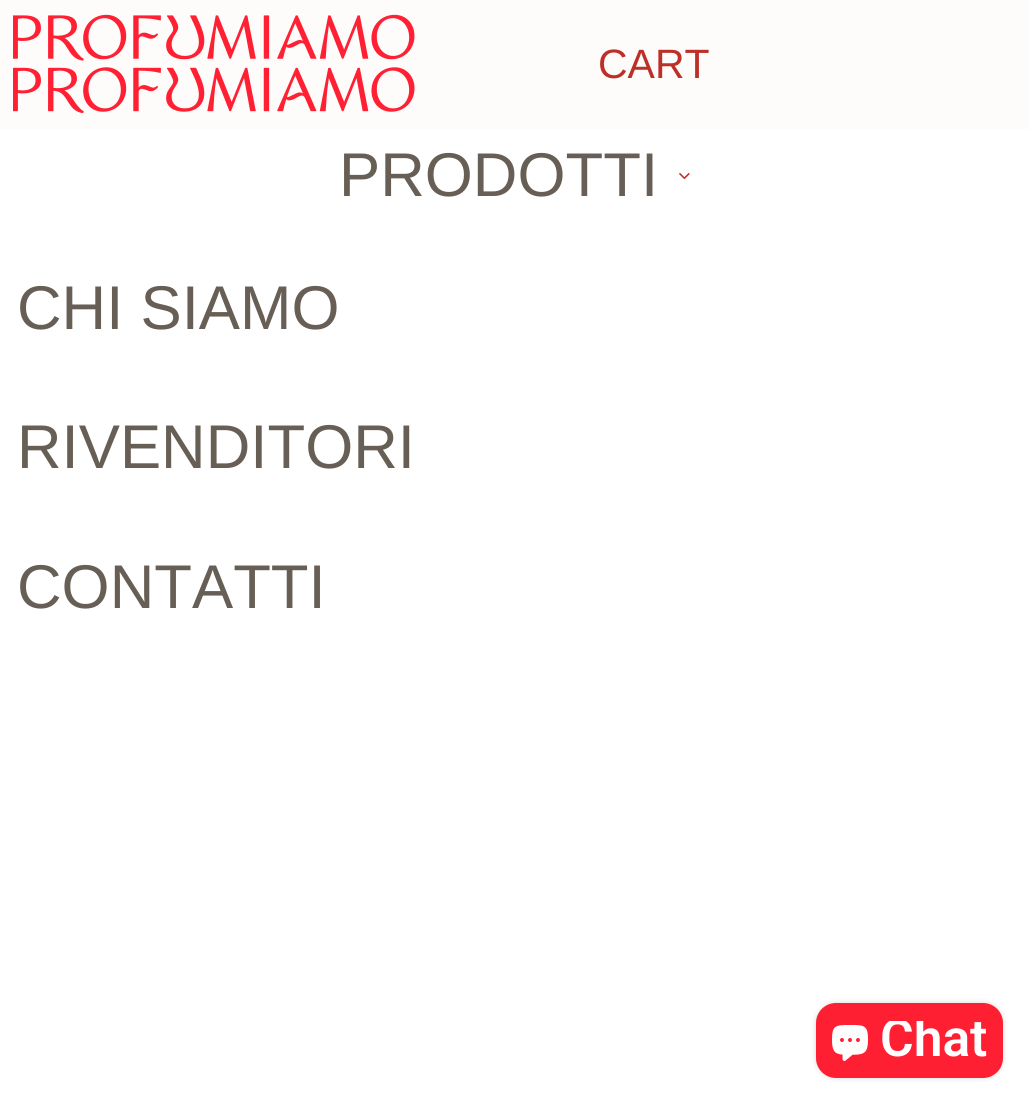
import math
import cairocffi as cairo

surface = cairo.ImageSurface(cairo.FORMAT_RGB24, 1029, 1103)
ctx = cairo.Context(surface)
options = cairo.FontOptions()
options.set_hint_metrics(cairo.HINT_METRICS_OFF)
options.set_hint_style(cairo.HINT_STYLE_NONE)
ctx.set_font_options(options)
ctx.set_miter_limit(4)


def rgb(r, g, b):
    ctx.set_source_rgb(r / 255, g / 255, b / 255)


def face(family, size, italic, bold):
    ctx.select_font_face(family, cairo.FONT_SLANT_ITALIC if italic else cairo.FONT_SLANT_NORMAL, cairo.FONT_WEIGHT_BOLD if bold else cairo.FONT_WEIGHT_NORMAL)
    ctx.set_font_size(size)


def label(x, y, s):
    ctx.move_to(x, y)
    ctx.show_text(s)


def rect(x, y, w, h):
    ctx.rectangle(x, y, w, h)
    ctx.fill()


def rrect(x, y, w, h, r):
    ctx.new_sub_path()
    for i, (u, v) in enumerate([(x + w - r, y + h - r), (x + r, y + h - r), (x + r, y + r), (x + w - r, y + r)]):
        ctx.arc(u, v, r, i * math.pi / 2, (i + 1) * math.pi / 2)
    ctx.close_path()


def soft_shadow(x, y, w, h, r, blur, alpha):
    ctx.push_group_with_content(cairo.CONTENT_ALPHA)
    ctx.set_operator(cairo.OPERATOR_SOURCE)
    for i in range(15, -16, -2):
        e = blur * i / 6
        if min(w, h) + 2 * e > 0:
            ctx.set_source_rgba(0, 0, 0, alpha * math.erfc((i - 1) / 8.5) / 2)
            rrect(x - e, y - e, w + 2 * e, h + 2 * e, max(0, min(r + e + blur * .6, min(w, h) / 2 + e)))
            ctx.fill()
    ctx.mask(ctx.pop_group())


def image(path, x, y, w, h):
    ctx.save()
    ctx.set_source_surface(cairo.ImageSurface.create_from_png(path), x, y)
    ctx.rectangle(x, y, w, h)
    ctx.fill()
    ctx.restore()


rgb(253, 252, 250)
ctx.paint()
image('image0.png', 13, 14, 402, 100)
face('Liberation Sans', 41, 0, 0)
rgb(189, 48, 40)
label(598, 78, 'CART')
rgb(255, 255, 255)
rect(0, 129, 1029, 974)
face('Liberation Sans', 61.75, 0, 0)
rgb(103, 95, 85)
label(339, 196, 'PRODOTTI')
image('image1.png', 679, 173, 11, 6)
label(17, 329, 'CHI SIAMO')
label(17, 468, 'RIVENDITORI')
label(17, 608, 'CONTATTI')
rgb(0, 0, 0)
soft_shadow(816, 1003, 187, 75, 20, 3, 0.15)
rgb(255, 31, 51)
rrect(816, 1003, 187, 75, 20)
ctx.fill()
image('image2.png', 832, 1025, 36, 36)
ctx.save()
ctx.rectangle(880, 1021, 108, 38)
ctx.clip()
face('Roboto SemiBold', 51.5, 0, 0)
rgb(255, 255, 255)
label(880, 1056, 'Chat')
ctx.restore()
surface.write_to_png('render.png')
